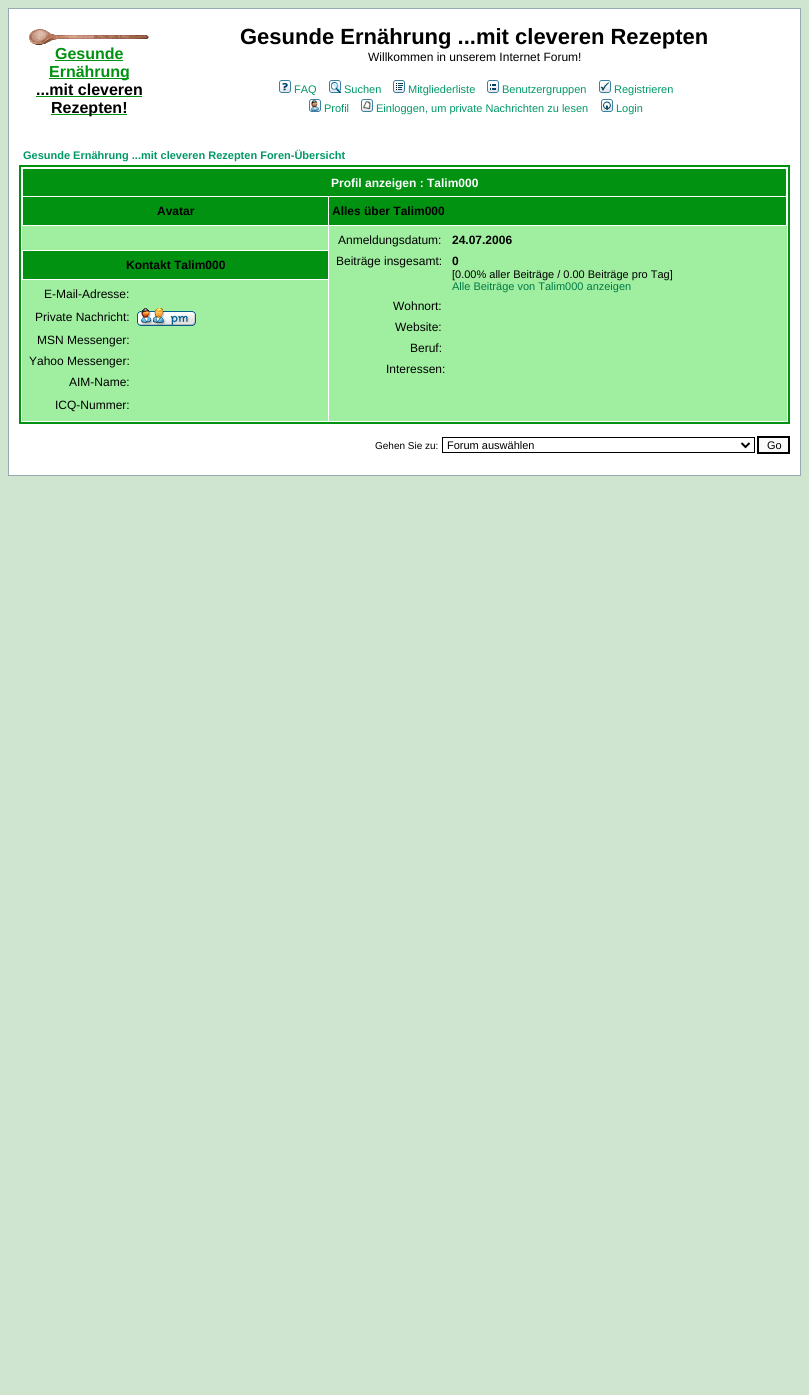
import math
import cairocffi as cairo

surface = cairo.ImageSurface(cairo.FORMAT_RGB24, 809, 1395)
ctx = cairo.Context(surface)
options = cairo.FontOptions()
options.set_hint_metrics(cairo.HINT_METRICS_OFF)
options.set_hint_style(cairo.HINT_STYLE_NONE)
ctx.set_font_options(options)
ctx.set_miter_limit(4)


def rgb(r, g, b):
    ctx.set_source_rgb(r / 255, g / 255, b / 255)


def face(family, size, italic, bold):
    ctx.select_font_face(family, cairo.FONT_SLANT_ITALIC if italic else cairo.FONT_SLANT_NORMAL, cairo.FONT_WEIGHT_BOLD if bold else cairo.FONT_WEIGHT_NORMAL)
    ctx.set_font_size(size)


def label(x, y, s):
    ctx.move_to(x, y)
    ctx.show_text(s)


def rect(x, y, w, h):
    ctx.rectangle(x, y, w, h)
    ctx.fill()


def image(path, x, y, w, h):
    ctx.save()
    ctx.set_source_surface(cairo.ImageSurface.create_from_png(path), x, y)
    ctx.rectangle(x, y, w, h)
    ctx.fill()
    ctx.restore()


rgb(208, 229, 208)
ctx.paint()
rgb(255, 255, 255)
ctx.rectangle(8.5, 8.5, 792, 467)
ctx.fill_preserve()
rgb(152, 170, 177)
ctx.set_line_width(1)
ctx.stroke()
image('image0.png', 29, 29, 120, 16)
face('Liberation Sans', 16, 0, 1)
rgb(0, 146, 16)
label(55, 59, 'Gesunde')
rect(55, 60, 68, 1)
rect(49, 78, 80, 1)
label(49, 77, 'Ernährung')
rgb(0, 0, 0)
label(36, 95, '...mit cleveren')
rgb(0, 146, 16)
rect(36, 96, 106, 1)
rect(51, 114, 76, 1)
rgb(0, 0, 0)
label(51, 113, 'Rezepten!')
face('Liberation Sans', 22, 0, 1)
label(240, 44, 'Gesunde Ernährung ...mit cleveren Rezepten')
face('Liberation Sans', 12, 0, 0)
label(368, 61, 'Willkommen in unserem Internet Forum!')
image('image1.png', 279, 80, 12, 13)
face('Liberation Sans', 11, 0, 0)
rgb(0, 153, 102)
label(294, 93, 'FAQ')
image('image2.png', 329, 80, 12, 13)
label(344, 93, 'Suchen')
image('image3.png', 393, 80, 12, 13)
label(408, 93, 'Mitgliederliste')
image('image4.png', 487, 80, 12, 13)
label(502, 93, 'Benutzergruppen')
image('image5.png', 599, 80, 12, 13)
label(614, 93, 'Registrieren')
image('image6.png', 309, 99, 12, 13)
label(324, 112, 'Profil')
image('image7.png', 361, 99, 12, 13)
label(376, 112, 'Einloggen, um private Nachrichten zu lesen')
image('image8.png', 601, 99, 12, 13)
label(616, 112, 'Login')
face('Liberation Sans', 11, 0, 1)
label(23, 159, 'Gesunde Ernährung ...mit cleveren Rezepten Foren-Übersicht')
ctx.rectangle(20, 166, 769, 257)
rgb(0, 146, 16)
ctx.set_line_width(2)
ctx.stroke()
rect(23, 169, 763, 27)
face('Liberation Sans', 12, 0, 1)
rgb(255, 255, 255)
label(331, 187, 'Profil anzeigen : Talim000')
rgb(0, 146, 16)
rect(23, 197, 305, 28)
rgb(0, 0, 0)
label(157, 215, 'Avatar')
rgb(0, 146, 16)
rect(329, 197, 457, 28)
rgb(0, 0, 0)
label(332, 215, 'Alles über Talim000')
rgb(0, 146, 16)
rect(23, 251, 305, 28)
rgb(0, 0, 0)
label(126, 269, 'Kontakt Talim000')
rgb(160, 239, 160)
rect(22, 226, 306, 24)
rect(329, 226, 458, 195)
face('Liberation Sans', 12, 0, 0)
rgb(0, 0, 0)
label(338, 244, 'Anmeldungsdatum:')
face('Liberation Sans', 12, 0, 1)
label(452, 244, '24.07.2006')
face('Liberation Sans', 12, 0, 0)
label(336, 265, 'Beiträge insgesamt:')
face('Liberation Sans', 12, 0, 1)
label(452, 265, '0')
face('Liberation Sans', 11, 0, 0)
label(452, 278, '[0.00% aller Beiträge / 0.00 Beiträge pro Tag]')
rgb(0, 121, 70)
label(452, 290, 'Alle Beiträge von Talim000 anzeigen')
face('Liberation Sans', 12, 0, 0)
rgb(0, 0, 0)
label(393, 310, 'Wohnort:')
label(395, 331, 'Website:')
label(410, 352, 'Beruf:')
label(386, 373, 'Interessen:')
rgb(160, 239, 160)
rect(22, 280, 306, 141)
rgb(0, 0, 0)
label(44, 298, 'E-Mail-Adresse:')
label(35, 321, 'Private Nachricht:')
image('image9.png', 137, 308, 59, 18)
label(37, 344, 'MSN Messenger:')
label(29, 365, 'Yahoo Messenger:')
label(69, 386, 'AIM-Name:')
label(55, 409, 'ICQ-Nummer:')
face('Liberation Sans', 10, 0, 0)
label(375, 449, 'Gehen Sie zu:')
ctx.rectangle(442.5, 437.5, 312, 15)
ctx.set_line_width(1)
ctx.stroke()
ctx.new_path()
ctx.move_to(741.5, 443)
ctx.line_to(745.5, 447)
ctx.line_to(749.5, 443)
ctx.set_line_width(2)
ctx.stroke()
face('Liberation Sans', 11, 0, 0)
label(447, 449, 'Forum auswählen')
rgb(250, 250, 250)
ctx.rectangle(758, 437, 31, 16)
ctx.fill_preserve()
rgb(0, 0, 0)
ctx.stroke()
label(767, 449, 'Go')
surface.write_to_png('render.png')
